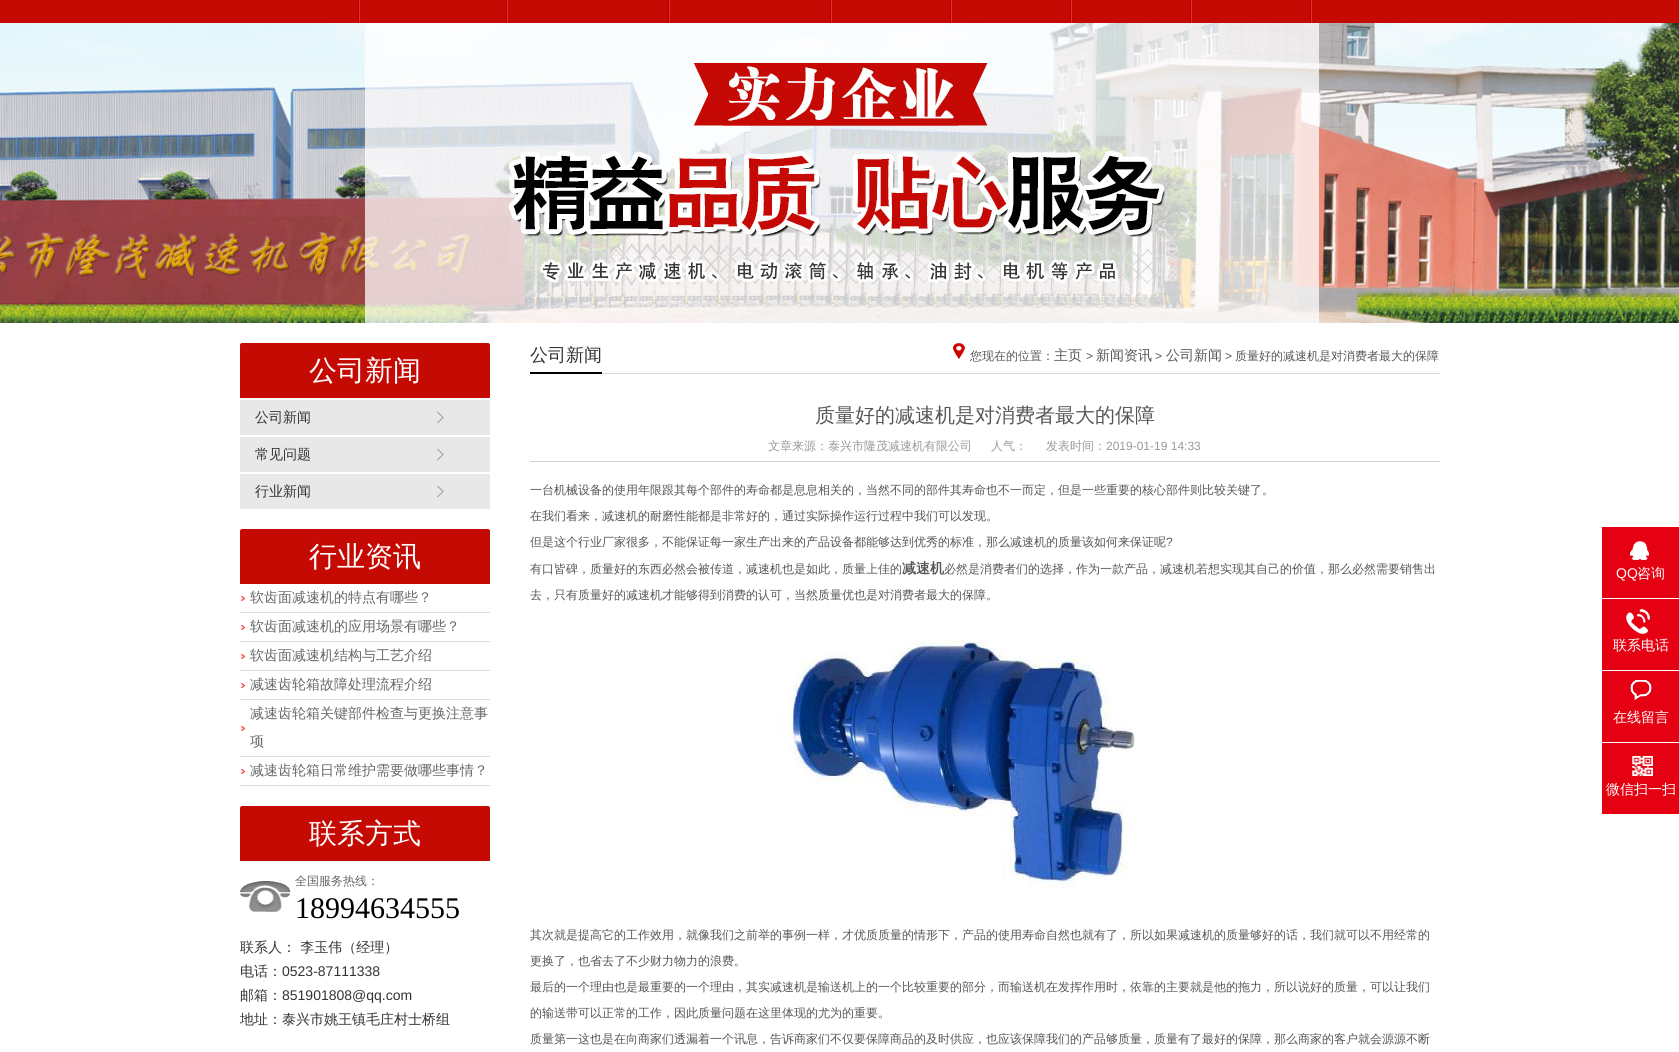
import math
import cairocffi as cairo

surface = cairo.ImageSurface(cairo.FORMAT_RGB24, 1679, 1052)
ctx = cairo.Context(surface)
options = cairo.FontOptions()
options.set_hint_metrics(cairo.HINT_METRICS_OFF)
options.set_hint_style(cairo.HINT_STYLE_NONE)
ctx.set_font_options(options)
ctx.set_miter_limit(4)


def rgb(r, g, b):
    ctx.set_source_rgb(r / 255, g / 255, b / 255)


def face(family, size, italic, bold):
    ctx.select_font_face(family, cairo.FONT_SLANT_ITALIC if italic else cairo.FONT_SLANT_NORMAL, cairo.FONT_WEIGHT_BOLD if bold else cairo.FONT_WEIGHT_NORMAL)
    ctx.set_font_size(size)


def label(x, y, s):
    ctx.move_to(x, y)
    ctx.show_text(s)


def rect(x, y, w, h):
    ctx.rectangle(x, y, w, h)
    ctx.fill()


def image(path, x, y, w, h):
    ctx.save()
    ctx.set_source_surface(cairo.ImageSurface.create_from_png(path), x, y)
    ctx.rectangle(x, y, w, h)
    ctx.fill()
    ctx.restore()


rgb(255, 255, 255)
ctx.paint()
rgb(197, 9, 3)
rect(0, 0, 1679, 23)
image('image0.png', 358, 0, 2, 23)
image('image0.png', 506, 0, 2, 23)
image('image0.png', 668, 0, 2, 23)
image('image0.png', 830, 0, 2, 23)
image('image0.png', 950, 0, 2, 23)
image('image0.png', 1070, 0, 2, 23)
image('image0.png', 1190, 0, 2, 23)
image('image0.png', 1310, 0, 2, 23)
image('image1.png', 0, 23, 1679, 300)
ctx.new_path()
ctx.move_to(242, 343)
ctx.line_to(488, 343)
ctx.curve_to(489, 343, 490, 344, 490, 345)
ctx.line_to(490, 398)
ctx.line_to(240, 398)
ctx.line_to(240, 345)
ctx.curve_to(240, 344, 241, 343, 242, 343)
ctx.close_path()
ctx.fill()
face('WenQuanYi Zen Hei Medium', 28, 0, 0)
rgb(255, 255, 255)
label(309, 380, '公司新闻')
rgb(232, 232, 232)
rect(240, 400, 250, 35)
image('image2.png', 437, 412, 7, 11)
face('WenQuanYi Zen Hei Medium', 14, 0, 0)
rgb(51, 51, 51)
label(255, 422, '公司新闻')
rgb(232, 232, 232)
rect(240, 437, 250, 35)
image('image2.png', 437, 449, 7, 11)
rgb(51, 51, 51)
label(255, 459, '常见问题')
rgb(232, 232, 232)
rect(240, 474, 250, 35)
image('image2.png', 437, 486, 7, 11)
rgb(51, 51, 51)
label(255, 496, '行业新闻')
rgb(197, 9, 3)
ctx.new_path()
ctx.move_to(242, 529)
ctx.line_to(488, 529)
ctx.curve_to(489, 529, 490, 530, 490, 531)
ctx.line_to(490, 584)
ctx.line_to(240, 584)
ctx.line_to(240, 531)
ctx.curve_to(240, 530, 241, 529, 242, 529)
ctx.close_path()
ctx.fill()
face('WenQuanYi Zen Hei Medium', 28, 0, 0)
rgb(255, 255, 255)
label(309, 566, '行业资讯')
image('image3.png', 241, 596, 4, 5)
rgb(221, 221, 221)
rect(240, 612, 250, 1)
face('WenQuanYi Zen Hei Medium', 14, 0, 0)
rgb(102, 102, 102)
label(250, 602, '软齿面减速机的特点有哪些？')
image('image3.png', 241, 625, 4, 5)
rgb(221, 221, 221)
rect(240, 641, 250, 1)
rgb(102, 102, 102)
label(250, 631, '软齿面减速机的应用场景有哪些？')
image('image3.png', 241, 654, 4, 5)
rgb(221, 221, 221)
rect(240, 670, 250, 1)
rgb(102, 102, 102)
label(250, 660, '软齿面减速机结构与工艺介绍')
image('image3.png', 241, 683, 4, 5)
rgb(221, 221, 221)
rect(240, 699, 250, 1)
rgb(102, 102, 102)
label(250, 689, '减速齿轮箱故障处理流程介绍')
image('image3.png', 241, 726, 4, 5)
rgb(221, 221, 221)
rect(240, 756, 250, 1)
rgb(102, 102, 102)
label(250, 718, '减速齿轮箱关键部件检查与更换注意事')
label(250, 746, '项')
image('image3.png', 241, 769, 4, 5)
rgb(221, 221, 221)
rect(240, 785, 250, 1)
rgb(102, 102, 102)
label(250, 775, '减速齿轮箱日常维护需要做哪些事情？')
rgb(197, 9, 3)
ctx.new_path()
ctx.move_to(242, 806)
ctx.line_to(488, 806)
ctx.curve_to(489, 806, 490, 807, 490, 808)
ctx.line_to(490, 861)
ctx.line_to(240, 861)
ctx.line_to(240, 808)
ctx.curve_to(240, 807, 241, 806, 242, 806)
ctx.close_path()
ctx.fill()
face('WenQuanYi Zen Hei Medium', 28, 0, 0)
rgb(255, 255, 255)
label(309, 843, '联系方式')
image('image4.png', 240, 881, 51, 31)
face('WenQuanYi Zen Hei Medium', 12, 0, 0)
rgb(102, 102, 102)
label(295, 885, '全国服务热线：')
face('Liberation Serif', 30, 0, 0)
rgb(0, 0, 0)
label(295, 918, '18994634555')
face('WenQuanYi Zen Hei Medium', 14, 0, 0)
rgb(51, 51, 51)
label(240, 952, '联系人： 李玉伟（经理）')
label(240, 976, '电话：')
face('Liberation Sans', 14, 0, 0)
label(282, 976, '0523-87111338')
face('WenQuanYi Zen Hei Medium', 14, 0, 0)
label(240, 1000, '邮箱：')
face('Liberation Sans', 14, 0, 0)
label(282, 1000, '851901808@qq.com')
face('WenQuanYi Zen Hei Medium', 14, 0, 0)
label(240, 1024, '地址：泰兴市姚王镇毛庄村士桥组')
rgb(218, 218, 218)
rect(602, 373, 838, 1)
rgb(0, 0, 0)
rect(530, 372, 72, 2)
face('WenQuanYi Zen Hei Medium', 18, 0, 0)
rgb(51, 51, 51)
label(530, 361, '公司新闻')
image('image5.png', 953, 343, 12, 16)
face('WenQuanYi Zen Hei Medium', 12, 0, 0)
rgb(86, 86, 86)
label(970, 360, '您现在的位置：')
face('WenQuanYi Zen Hei Medium', 14, 0, 0)
label(1054, 360, '主页')
face('Liberation Sans', 12, 0, 0)
label(1086, 360, '>')
face('WenQuanYi Zen Hei Medium', 14, 0, 0)
label(1096, 360, '新闻资讯')
face('Liberation Sans', 12, 0, 0)
label(1155, 360, '>')
face('WenQuanYi Zen Hei Medium', 14, 0, 0)
label(1166, 360, '公司新闻')
face('Liberation Sans', 12, 0, 0)
label(1225, 360, '>')
face('WenQuanYi Zen Hei Medium', 12, 0, 0)
label(1235, 360, '质量好的减速机是对消费者最大的保障')
face('WenQuanYi Zen Hei Medium', 20, 0, 0)
label(815, 422, '质量好的减速机是对消费者最大的保障')
rgb(210, 210, 210)
rect(530, 461, 910, 1)
face('WenQuanYi Zen Hei Medium', 12, 0, 0)
rgb(153, 153, 153)
label(768, 450, '文章来源：泰兴市隆茂减速机有限公司')
label(991, 450, '人气：')
label(1046, 450, '发表时间：')
face('Liberation Sans', 12, 0, 0)
label(1106, 450, '2019-01-19 14:33')
face('WenQuanYi Zen Hei Medium', 12, 0, 0)
rgb(86, 86, 86)
label(530, 494, '一台机械设备的使用年限跟其每个部件的寿命都是息息相关的，当然不同的部件其寿命也不一而定，但是一些重要的核心部件则比较关键了。')
label(530, 520, '在我们看来，减速机的耐磨性能都是非常好的，通过实际操作运行过程中我们可以发现。')
label(530, 546, '但是这个行业厂家很多，不能保证每一家生产出来的产品设备都能够达到优秀的标准，那么减速机的质量该如何来保证呢')
face('Liberation Sans', 12, 0, 0)
label(1166, 546, '?')
face('WenQuanYi Zen Hei Medium', 12, 0, 0)
label(530, 573, '有口皆碑，质量好的东西必然会被传道，减速机也是如此，质量上佳的')
face('WenQuanYi Zen Hei', 14, 0, 1)
label(902, 573, '减速机')
face('WenQuanYi Zen Hei Medium', 12, 0, 0)
label(944, 573, '必然是消费者们的选择，作为一款产品，减速机若想实现其自己的价值，那么必然需要销售出')
label(530, 599, '去，只有质量好的减速机才能够得到消费的认可，当然质量优也是对消费者最大的保障。')
image('image6.png', 779, 640, 357, 250)
label(530, 939, '其次就是提高它的工作效用，就像我们之前举的事例一样，才优质质量的情形下，产品的使用寿命自然也就有了，所以如果减速机的质量够好的话，我们就可以不用经常的')
label(530, 965, '更换了，也省去了不少财力物力的浪费。')
label(530, 991, '最后的一个理由也是最重要的一个理由，其实减速机是输送机上的一个比较重要的部分，而输送机在发挥作用时，依靠的主要就是他的拖力，所以说好的质量，可以让我们')
label(530, 1017, '的输送带可以正常的工作，因此质量问题在这里体现的尤为的重要。')
label(530, 1043, '质量第一这也是在向商家们透漏着一个讯息，告诉商家们不仅要保障商品的及时供应，也应该保障我们的产品够质量，质量有了最好的保障，那么商家的客户就会源源不断')
rgb(229, 1, 18)
rect(1602, 527, 77, 71)
image('image7.png', 1630, 541, 19, 19)
face('Liberation Sans', 14, 0, 0)
rgb(255, 255, 255)
label(1616, 578, 'QQ')
face('WenQuanYi Zen Hei Medium', 14, 0, 0)
label(1637, 578, '咨询')
rgb(229, 1, 18)
rect(1602, 599, 77, 71)
image('image8.png', 1626, 609, 24, 25)
rgb(255, 255, 255)
label(1613, 650, '联系电话')
rgb(229, 1, 18)
rect(1602, 671, 77, 71)
image('image9.png', 1630, 680, 22, 21)
rgb(255, 255, 255)
label(1613, 722, '在线留言')
rgb(229, 1, 18)
rect(1602, 743, 77, 71)
image('image10.png', 1632, 756, 21, 20)
rgb(255, 255, 255)
label(1606, 794, '微信扫一扫')
surface.write_to_png('render.png')
